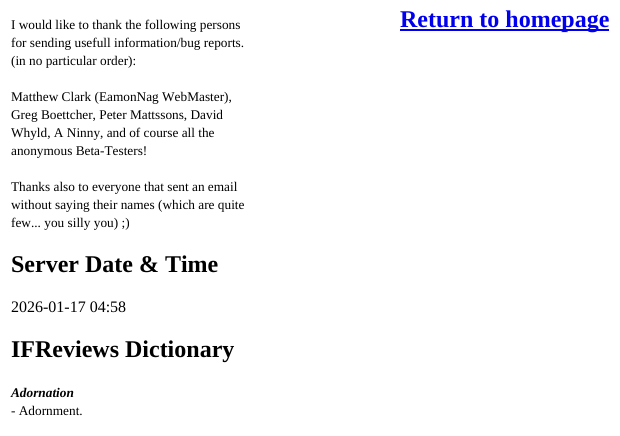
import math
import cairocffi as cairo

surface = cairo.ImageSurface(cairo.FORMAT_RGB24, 620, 436)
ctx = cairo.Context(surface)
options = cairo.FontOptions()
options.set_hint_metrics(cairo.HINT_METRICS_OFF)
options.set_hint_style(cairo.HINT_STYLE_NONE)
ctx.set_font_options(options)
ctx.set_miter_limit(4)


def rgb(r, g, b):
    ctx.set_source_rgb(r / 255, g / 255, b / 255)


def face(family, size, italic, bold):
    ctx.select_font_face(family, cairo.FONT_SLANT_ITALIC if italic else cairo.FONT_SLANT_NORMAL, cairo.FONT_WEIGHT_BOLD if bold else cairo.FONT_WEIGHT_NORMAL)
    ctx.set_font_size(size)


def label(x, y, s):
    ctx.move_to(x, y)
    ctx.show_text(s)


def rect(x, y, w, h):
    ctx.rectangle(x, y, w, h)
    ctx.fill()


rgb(255, 255, 255)
ctx.paint()
face('Liberation Serif', 13.3, 0, 0)
rgb(0, 0, 0)
label(11, 29, 'I would like to thank the following persons')
label(11, 47, 'for sending usefull information/bug reports.')
label(11, 65, '(in no particular order):')
label(11, 101, 'Matthew Clark (EamonNag WebMaster),')
label(11, 119, 'Greg Boettcher, Peter Mattssons, David')
label(11, 137, 'Whyld, A Ninny, and of course all the')
label(11, 155, 'anonymous Beta-Testers!')
label(11, 191, 'Thanks also to everyone that sent an email')
label(11, 209, 'without saying their names (which are quite')
label(11, 227, 'few... you silly you) ;)')
face('Liberation Serif', 24, 0, 1)
label(11, 272, 'Server Date & Time')
face('Liberation Serif', 16, 0, 0)
label(11, 312, '2026-01-17 04:58')
face('Liberation Serif', 24, 0, 1)
label(11, 357, 'IFReviews Dictionary')
face('Liberation Serif', 13.3, 1, 1)
label(11, 397, 'Adornation')
face('Liberation Serif', 13.3, 0, 0)
label(11, 415, '- Adornment.')
rgb(0, 0, 238)
rect(400, 29, 209, 2)
face('Liberation Serif', 24, 0, 1)
label(400, 27, 'Return to homepage')
surface.write_to_png('render.png')
